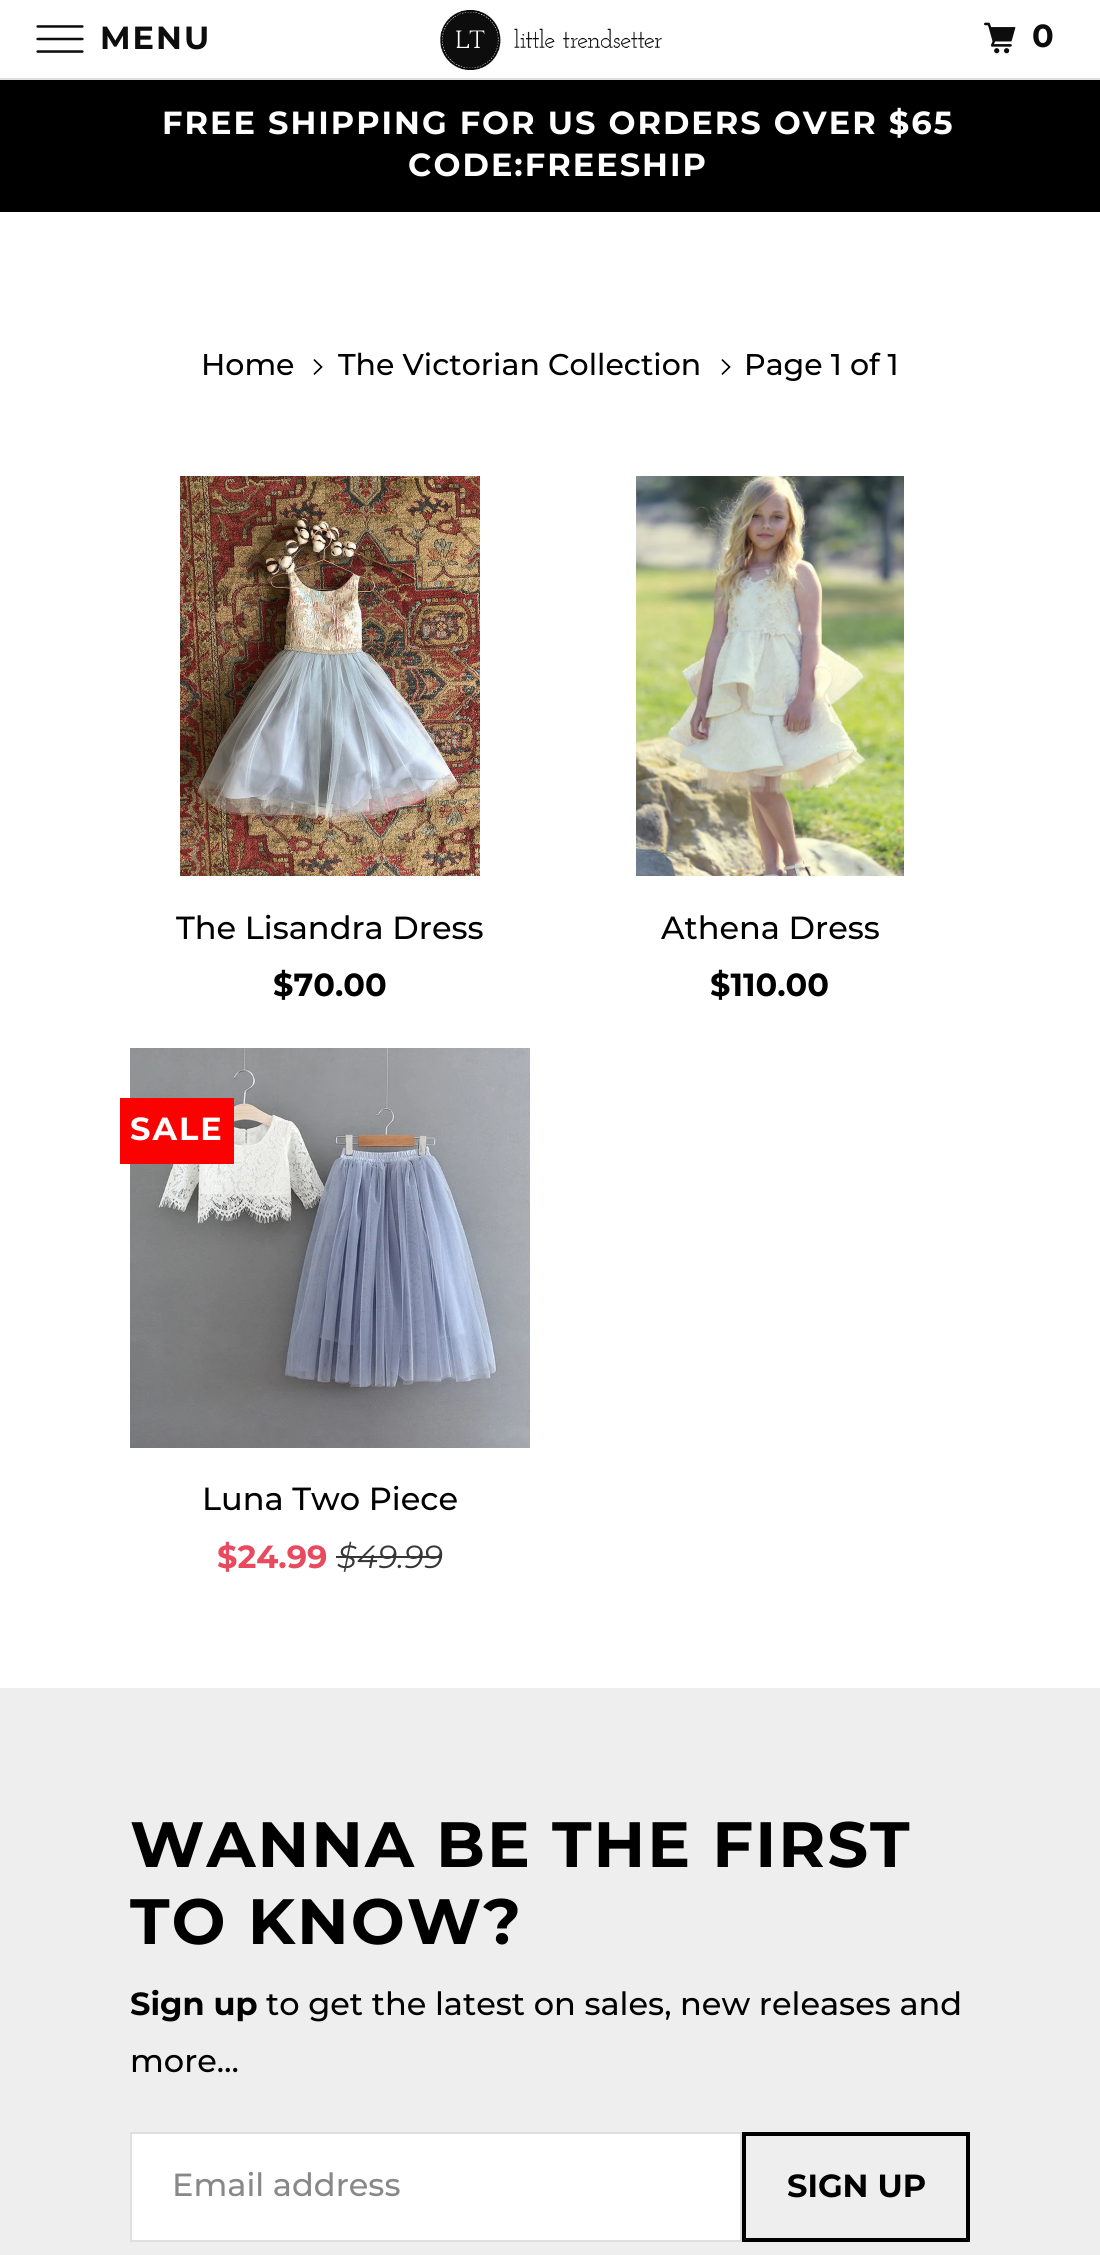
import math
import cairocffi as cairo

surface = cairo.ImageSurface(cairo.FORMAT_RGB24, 1100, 2255)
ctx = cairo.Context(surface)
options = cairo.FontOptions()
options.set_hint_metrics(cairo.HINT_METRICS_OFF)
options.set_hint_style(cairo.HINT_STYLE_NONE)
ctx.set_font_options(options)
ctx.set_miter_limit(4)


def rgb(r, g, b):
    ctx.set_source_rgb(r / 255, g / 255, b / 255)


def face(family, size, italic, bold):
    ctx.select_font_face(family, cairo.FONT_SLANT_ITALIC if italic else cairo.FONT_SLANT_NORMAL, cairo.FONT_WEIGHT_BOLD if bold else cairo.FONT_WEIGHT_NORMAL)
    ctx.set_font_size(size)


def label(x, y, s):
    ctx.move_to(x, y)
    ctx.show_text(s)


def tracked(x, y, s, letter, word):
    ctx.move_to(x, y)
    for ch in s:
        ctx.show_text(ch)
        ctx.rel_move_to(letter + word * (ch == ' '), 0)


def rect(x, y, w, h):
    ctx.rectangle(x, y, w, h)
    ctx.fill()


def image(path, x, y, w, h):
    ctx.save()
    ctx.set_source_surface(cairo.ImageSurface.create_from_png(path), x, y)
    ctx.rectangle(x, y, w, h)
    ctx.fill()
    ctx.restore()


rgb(255, 255, 255)
ctx.paint()
rgb(223, 223, 223)
rect(0, 78, 1100, 2)
image('image0.png', 36, 25, 48, 28)
face('Montserrat', 32, 0, 1)
rgb(13, 13, 13)
tracked(100, 49, 'MENU', 2, 0)
image('image1.png', 440, 10, 222, 60)
image('image2.png', 984, 22, 32, 32)
tracked(1032, 47, '0', 2, 0)
rgb(0, 0, 0)
rect(0, 80, 1100, 132)
rgb(255, 255, 255)
tracked(162, 134, 'FREE SHIPPING FOR US ORDERS OVER $65', 2, 0)
tracked(408, 176, 'CODE:FREESHIP', 2, 0)
face('Montserrat Medium', 30, 0, 0)
rgb(0, 0, 0)
label(201, 375, 'Home')
image('image3.png', 313, 359, 10, 16)
label(338, 375, 'The Victorian Collection')
image('image3.png', 721, 359, 10, 16)
label(744, 375, 'Page 1 of 1')
image('image4.png', 180, 476, 300, 400)
face('Montserrat Medium', 32, 0, 0)
label(176, 939, 'The Lisandra Dress')
face('Montserrat', 32, 0, 1)
label(273, 996, '$70.00')
image('image5.png', 636, 476, 268, 400)
face('Montserrat Medium', 32, 0, 0)
label(661, 939, 'Athena Dress')
face('Montserrat', 32, 0, 1)
label(710, 996, '$110.00')
image('image6.png', 130, 1048, 400, 400)
rgb(250, 2, 2)
rect(120, 1098, 114, 66)
rgb(255, 255, 255)
tracked(130, 1140, 'SALE', 2, 0)
face('Montserrat Medium', 32, 0, 0)
rgb(0, 0, 0)
label(202, 1510, 'Luna Two Piece')
face('Montserrat', 32, 0, 1)
rgb(232, 74, 95)
label(217, 1568, '$24.99')
face('Montserrat', 32, 1, 0)
rgb(54, 54, 54)
label(337, 1568, '$49.99')
rect(336, 1556, 106, 2)
rgb(238, 238, 238)
rect(0, 1688, 1100, 567)
face('Montserrat', 64, 0, 1)
rgb(0, 0, 0)
tracked(130, 1867, 'WANNA BE THE FIRST', 2, 0)
tracked(130, 1944, 'TO KNOW?', 2, 0)
face('Montserrat', 32, 0, 1)
label(130, 2015, 'Sign up')
face('Montserrat Medium', 32, 0, 0)
label(266, 2015, 'to get the latest on sales, new releases and')
label(130, 2072, 'more…')
rgb(255, 255, 255)
ctx.rectangle(131, 2133, 610, 108)
ctx.fill_preserve()
rgb(223, 223, 223)
ctx.stroke()
rgb(136, 136, 136)
label(172, 2196, 'Email address')
ctx.rectangle(744, 2134, 224, 106)
rgb(0, 0, 0)
ctx.set_line_width(4)
ctx.stroke()
face('Montserrat', 32, 0, 1)
label(787, 2197, 'SIGN UP')
surface.write_to_png('render.png')
